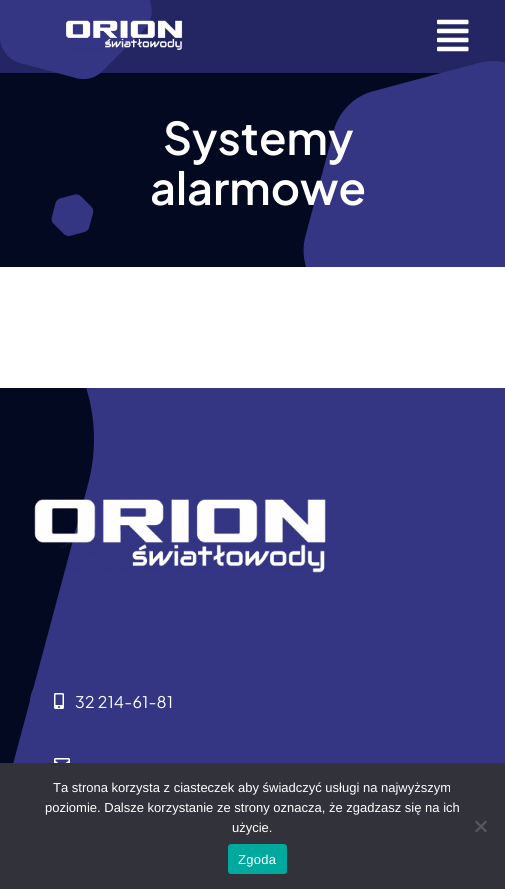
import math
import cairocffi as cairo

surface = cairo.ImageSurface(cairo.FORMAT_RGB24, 505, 889)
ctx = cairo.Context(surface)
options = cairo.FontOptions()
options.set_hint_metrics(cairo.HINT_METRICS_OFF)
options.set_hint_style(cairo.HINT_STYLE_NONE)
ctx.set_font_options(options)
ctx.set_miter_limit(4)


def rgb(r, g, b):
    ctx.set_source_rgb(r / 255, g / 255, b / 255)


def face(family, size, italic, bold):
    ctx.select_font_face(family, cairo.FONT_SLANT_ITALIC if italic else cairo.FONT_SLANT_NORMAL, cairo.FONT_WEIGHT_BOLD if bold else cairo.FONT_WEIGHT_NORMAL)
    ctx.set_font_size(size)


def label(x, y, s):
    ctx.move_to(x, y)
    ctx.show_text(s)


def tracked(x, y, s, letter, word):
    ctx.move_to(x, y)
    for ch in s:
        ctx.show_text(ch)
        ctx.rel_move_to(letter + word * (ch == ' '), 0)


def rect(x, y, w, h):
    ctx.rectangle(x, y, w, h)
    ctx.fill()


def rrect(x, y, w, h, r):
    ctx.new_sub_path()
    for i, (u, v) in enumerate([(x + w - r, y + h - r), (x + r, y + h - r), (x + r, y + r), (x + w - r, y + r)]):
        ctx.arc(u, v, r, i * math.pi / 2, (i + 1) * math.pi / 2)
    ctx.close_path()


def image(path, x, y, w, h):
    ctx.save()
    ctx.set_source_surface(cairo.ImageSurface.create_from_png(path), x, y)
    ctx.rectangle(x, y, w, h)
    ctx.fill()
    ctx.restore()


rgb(255, 255, 255)
ctx.paint()
rgb(4, 9, 34)
rect(0, 0, 505, 267)
image('image2.png', 0, 0, 505, 267)
ctx.set_source_rgba(0.204, 0.208, 0.514, 0.66)
rect(0, 0, 505, 73)
image('image0.png', 66, 20, 117, 31)
image('image1.png', 437, 19, 32, 33)
face('Plus Jakarta Sans SemiBold', 45, 0, 0)
rgb(255, 255, 255)
label(163, 155, 'Systemy')
label(150, 205, 'alarmowe')
rgb(52, 53, 131)
rect(13, 388, 492, 375)
image('image3.png', 0, 388, 94, 375)
image('image4.png', 34, 499, 292, 74)
rrect(30, 676, 171, 51, 25.5)
ctx.fill()
image('image5.png', 54, 693, 10, 16)
face('Plus Jakarta Sans', 16, 0, 0)
rgb(255, 255, 255)
tracked(75, 708, '32 214-61-81', 0.25, 0)
image('image6.png', 54, 758, 16, 5)
rgb(50, 50, 58)
rect(0, 763, 505, 126)
face('Liberation Sans', 13, 0, 0)
rgb(255, 255, 255)
label(53, 792, 'Ta strona korzysta z ciasteczek aby świadczyć usługi na najwyższym')
label(45, 812, 'poziomie. Dalsze korzystanie ze strony oznacza, że zgadzasz się na ich')
label(232, 832, 'użycie.')
rgb(89, 89, 93)
ctx.new_path()
ctx.move_to(485.5, 820.5)
ctx.line_to(487, 822)
ctx.line_to(476.5, 832.5)
ctx.line_to(475, 831)
ctx.close_path()
ctx.fill()
ctx.new_path()
ctx.move_to(475, 822)
ctx.line_to(476.5, 820.5)
ctx.line_to(487, 831)
ctx.line_to(485.5, 832.5)
ctx.close_path()
ctx.fill()
rgb(0, 169, 157)
rrect(228, 844, 59, 30, 3)
ctx.fill()
rgb(255, 255, 255)
tracked(238, 864, 'Zgoda', 0.25, 0)
surface.write_to_png('render.png')
